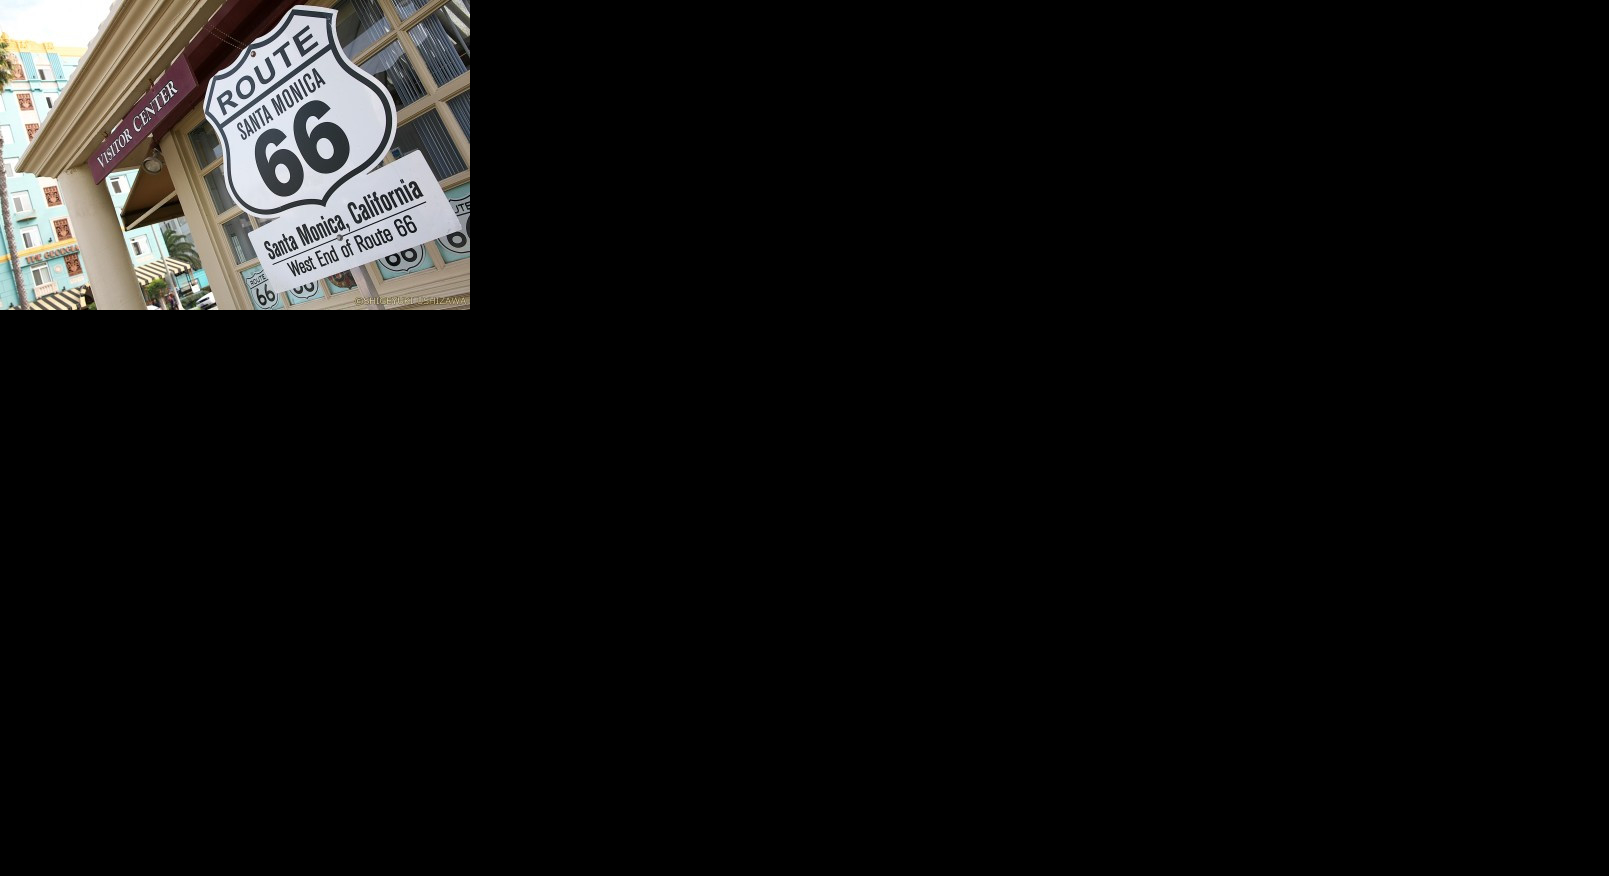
import math
import cairocffi as cairo

surface = cairo.ImageSurface(cairo.FORMAT_RGB24, 1609, 876)
ctx = cairo.Context(surface)
options = cairo.FontOptions()
options.set_hint_metrics(cairo.HINT_METRICS_OFF)
options.set_hint_style(cairo.HINT_STYLE_NONE)
ctx.set_font_options(options)
ctx.set_miter_limit(4)


def rgb(r, g, b):
    ctx.set_source_rgb(r / 255, g / 255, b / 255)


def image(path, x, y, w, h):
    ctx.save()
    ctx.set_source_surface(cairo.ImageSurface.create_from_png(path), x, y)
    ctx.rectangle(x, y, w, h)
    ctx.fill()
    ctx.restore()


rgb(0, 0, 0)
ctx.paint()
image('image0.png', 0, 0, 470, 310)
surface.write_to_png('render.png')
